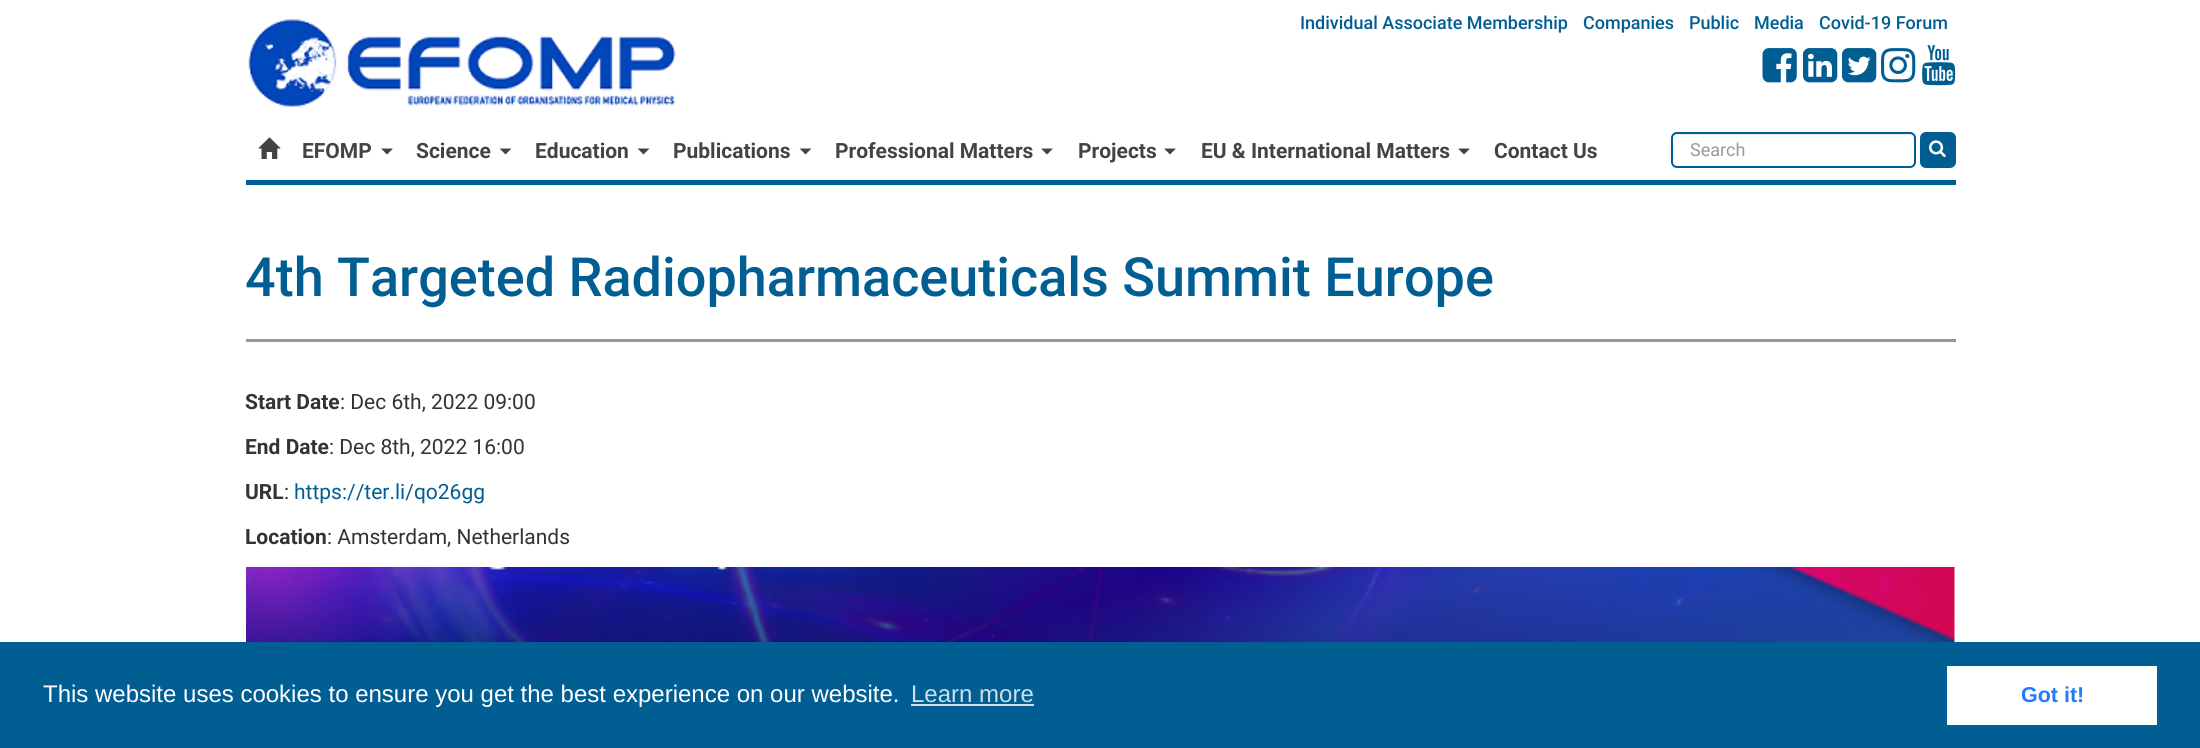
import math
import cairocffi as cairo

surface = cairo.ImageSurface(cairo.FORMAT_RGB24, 2200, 748)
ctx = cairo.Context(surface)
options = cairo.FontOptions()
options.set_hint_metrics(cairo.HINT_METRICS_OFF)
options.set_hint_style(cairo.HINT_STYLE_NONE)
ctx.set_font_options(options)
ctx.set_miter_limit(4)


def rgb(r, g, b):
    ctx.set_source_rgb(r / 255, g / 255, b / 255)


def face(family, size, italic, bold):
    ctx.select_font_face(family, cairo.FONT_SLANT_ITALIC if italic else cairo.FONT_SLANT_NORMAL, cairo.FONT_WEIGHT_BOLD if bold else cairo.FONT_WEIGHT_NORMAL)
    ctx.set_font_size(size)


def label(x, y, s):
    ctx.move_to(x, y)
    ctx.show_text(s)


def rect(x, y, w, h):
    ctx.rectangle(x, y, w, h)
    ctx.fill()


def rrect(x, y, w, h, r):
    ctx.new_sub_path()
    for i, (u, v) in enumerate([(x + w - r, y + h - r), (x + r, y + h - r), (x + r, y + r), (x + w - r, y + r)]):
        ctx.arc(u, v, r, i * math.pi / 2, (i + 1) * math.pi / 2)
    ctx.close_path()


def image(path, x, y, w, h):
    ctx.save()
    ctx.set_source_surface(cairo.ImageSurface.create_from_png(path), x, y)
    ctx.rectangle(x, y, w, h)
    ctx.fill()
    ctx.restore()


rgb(255, 255, 255)
ctx.paint()
image('image0.png', 248, 19, 428, 88)
face('Roboto Medium', 18, 0, 0)
rgb(1, 94, 147)
label(1300, 29, 'Individual Associate Membership')
label(1583, 29, 'Companies')
label(1689, 29, 'Public')
label(1754, 29, 'Media')
label(1819, 29, 'Covid-19 Forum')
image('image1.png', 1762, 48, 35, 35)
image('image2.png', 1803, 48, 35, 35)
image('image3.png', 1842, 48, 35, 35)
image('image4.png', 1881, 48, 35, 35)
image('image5.png', 1922, 45, 34, 41)
rect(246, 180, 1710, 5)
image('image6.png', 258, 137, 23, 22)
face('Roboto', 21, 0, 1)
rgb(66, 68, 66)
label(302, 158, 'EFOMP')
ctx.new_path()
ctx.move_to(381, 148.5)
ctx.line_to(393, 148.5)
ctx.line_to(387, 154.5)
ctx.close_path()
ctx.fill()
label(416, 158, 'Science')
ctx.new_path()
ctx.move_to(499.5, 148.5)
ctx.line_to(511.5, 148.5)
ctx.line_to(505.5, 154.5)
ctx.close_path()
ctx.fill()
label(535, 158, 'Education')
ctx.new_path()
ctx.move_to(637.5, 148.5)
ctx.line_to(649.5, 148.5)
ctx.line_to(643.5, 154.5)
ctx.close_path()
ctx.fill()
label(673, 158, 'Publications')
ctx.new_path()
ctx.move_to(799.5, 148.5)
ctx.line_to(811.5, 148.5)
ctx.line_to(805.5, 154.5)
ctx.close_path()
ctx.fill()
label(835, 158, 'Professional Matters')
ctx.new_path()
ctx.move_to(1041, 148.5)
ctx.line_to(1053, 148.5)
ctx.line_to(1047, 154.5)
ctx.close_path()
ctx.fill()
label(1078, 158, 'Projects')
ctx.new_path()
ctx.move_to(1164, 148.5)
ctx.line_to(1176, 148.5)
ctx.line_to(1170, 154.5)
ctx.close_path()
ctx.fill()
label(1201, 158, 'EU & International Matters')
ctx.new_path()
ctx.move_to(1458, 148.5)
ctx.line_to(1470, 148.5)
ctx.line_to(1464, 154.5)
ctx.close_path()
ctx.fill()
label(1494, 158, 'Contact Us')
rgb(236, 236, 236)
ctx.new_path()
ctx.move_to(1677, 135)
ctx.line_to(1910, 135)
ctx.curve_to(1912, 135, 1914, 137, 1914, 140)
ctx.line_to(1914, 139)
ctx.curve_to(1914, 136, 1912, 134, 1909, 134)
ctx.line_to(1678, 134)
ctx.curve_to(1676, 134, 1675, 135, 1674, 136)
ctx.close_path()
ctx.fill()
rrect(1672, 133, 243, 34, 5)
rgb(1, 94, 147)
ctx.stroke()
face('Roboto', 18, 0, 0)
rgb(153, 153, 153)
label(1690, 156, 'Search')
rgb(1, 94, 147)
rrect(1921, 133, 34, 34, 5)
ctx.fill_preserve()
ctx.stroke()
image('image7.png', 1929, 140, 17, 18)
rgb(152, 152, 152)
rect(246, 339, 1710, 3)
face('Roboto Medium', 54, 0, 0)
rgb(1, 94, 147)
label(245, 296, '4th Targeted Radiopharmaceuticals Summit Europe')
face('Roboto', 21, 0, 1)
rgb(51, 51, 51)
label(245, 409, 'Start Date')
face('Roboto', 21, 0, 0)
label(340, 409, ': Dec 6th, 2022 09:00')
face('Roboto', 21, 0, 1)
label(245, 454, 'End Date')
face('Roboto', 21, 0, 0)
label(329, 454, ': Dec 8th, 2022 16:00')
face('Roboto', 21, 0, 1)
label(245, 499, 'URL')
face('Roboto', 21, 0, 0)
label(284, 499, ':')
rgb(1, 94, 147)
label(294, 499, 'https://ter.li/qo26gg')
face('Roboto', 21, 0, 1)
rgb(51, 51, 51)
label(245, 544, 'Location')
face('Roboto', 21, 0, 0)
label(327, 544, ': Amsterdam, Netherlands')
image('image8.png', 246, 567, 1709, 75)
rgb(1, 94, 147)
rect(0, 642, 2200, 106)
face('Liberation Sans', 24, 0, 0)
rgb(255, 255, 255)
label(43, 702, 'This website uses cookies to ensure you get the best experience on our website.')
rgb(204, 223, 233)
label(911, 702, 'Learn more')
rect(911, 704, 123, 2)
rgb(255, 255, 255)
rect(1947, 666, 210, 59)
face('Liberation Sans', 21.5, 0, 1)
rgb(35, 122, 252)
label(2021, 702, 'Got it!')
surface.write_to_png('render.png')
